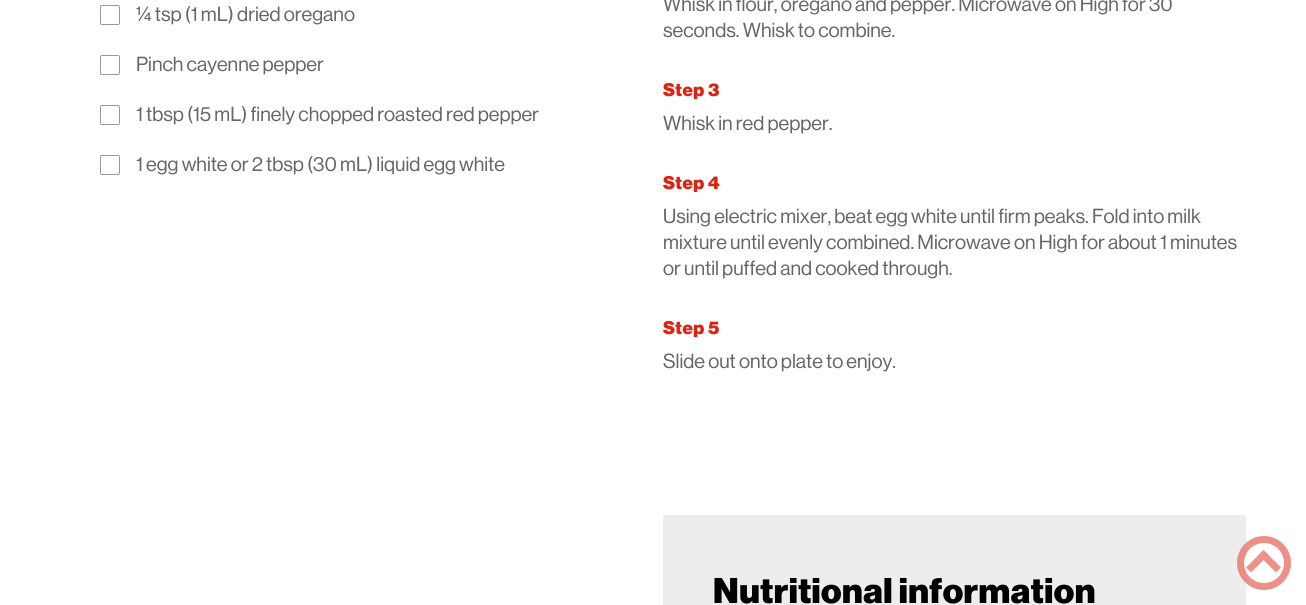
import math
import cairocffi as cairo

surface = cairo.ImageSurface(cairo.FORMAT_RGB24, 1306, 605)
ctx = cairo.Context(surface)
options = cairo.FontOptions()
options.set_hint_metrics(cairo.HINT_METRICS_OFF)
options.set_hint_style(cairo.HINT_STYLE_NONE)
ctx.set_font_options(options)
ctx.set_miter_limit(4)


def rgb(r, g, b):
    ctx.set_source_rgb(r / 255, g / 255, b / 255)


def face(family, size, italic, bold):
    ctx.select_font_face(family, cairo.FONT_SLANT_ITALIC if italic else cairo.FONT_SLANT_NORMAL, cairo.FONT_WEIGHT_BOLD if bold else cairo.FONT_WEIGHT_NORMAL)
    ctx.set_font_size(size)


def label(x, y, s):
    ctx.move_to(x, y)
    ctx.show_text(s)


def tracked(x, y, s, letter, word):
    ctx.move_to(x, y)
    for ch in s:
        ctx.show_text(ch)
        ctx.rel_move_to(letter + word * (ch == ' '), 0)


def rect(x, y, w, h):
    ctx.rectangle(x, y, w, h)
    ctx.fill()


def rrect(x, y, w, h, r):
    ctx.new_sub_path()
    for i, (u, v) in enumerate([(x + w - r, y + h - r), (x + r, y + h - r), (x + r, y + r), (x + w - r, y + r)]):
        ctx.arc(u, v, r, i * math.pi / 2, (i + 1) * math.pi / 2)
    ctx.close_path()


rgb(255, 255, 255)
ctx.paint()
rrect(100.5, 5.5, 19, 19, 1.5)
rgb(153, 153, 153)
ctx.set_line_width(1)
ctx.stroke()
face('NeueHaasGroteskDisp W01', 20, 0, 0)
rgb(102, 102, 102)
label(136, 21, '¼ tsp (1 mL) dried oregano')
rrect(100.5, 55.5, 19, 19, 1.5)
rgb(153, 153, 153)
ctx.stroke()
rgb(102, 102, 102)
label(136, 71, 'Pinch cayenne pepper')
rrect(100.5, 105.5, 19, 19, 1.5)
rgb(153, 153, 153)
ctx.stroke()
rgb(102, 102, 102)
label(136, 121, '1 tbsp (15 mL) finely chopped roasted red pepper')
rrect(100.5, 155.5, 19, 19, 1.5)
rgb(153, 153, 153)
ctx.stroke()
rgb(102, 102, 102)
label(136, 171, '1 egg white or 2 tbsp (30 mL) liquid egg white')
label(663, 11, 'Whisk in flour, oregano and pepper. Microwave on High for 30')
label(663, 37, 'seconds. Whisk to combine.')
face('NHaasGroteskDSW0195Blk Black', 18, 0, 0)
rgb(221, 34, 17)
tracked(663, 96, 'Step 3', 0.5, 0)
face('NeueHaasGroteskDisp W01', 20, 0, 0)
rgb(102, 102, 102)
label(663, 130, 'Whisk in red pepper.')
face('NHaasGroteskDSW0195Blk Black', 18, 0, 0)
rgb(221, 34, 17)
tracked(663, 189, 'Step 4', 0.5, 0)
face('NeueHaasGroteskDisp W01', 20, 0, 0)
rgb(102, 102, 102)
label(663, 223, 'Using electric mixer, beat egg white until firm peaks. Fold into milk')
label(663, 249, 'mixture until evenly combined. Microwave on High for about 1 minutes')
label(663, 275, 'or until puffed and cooked through.')
face('NHaasGroteskDSW0195Blk Black', 18, 0, 0)
rgb(221, 34, 17)
tracked(663, 334, 'Step 5', 0.5, 0)
face('NeueHaasGroteskDisp W01', 20, 0, 0)
rgb(102, 102, 102)
label(663, 368, 'Slide out onto plate to enjoy.')
rgb(237, 237, 237)
rect(663, 515, 583, 90)
face('NHaasGroteskDSW0195Blk Black', 35, 0, 0)
rgb(0, 0, 0)
tracked(713, 603, 'Nutritional information', 0.5, 0)
ctx.set_source_rgba(1, 1, 1, 0.5)
ctx.new_path()
ctx.arc(1264, 563, 27, 0, 2 * math.pi)
ctx.fill()
ctx.arc(1264, 563, 23.5, 0, 2 * math.pi)
ctx.set_source_rgba(0.867, 0.133, 0.067, 0.5)
ctx.set_line_width(7)
ctx.stroke()
rgb(238, 145, 136)
ctx.new_path()
ctx.move_to(1246, 567.5)
ctx.line_to(1263.5, 550)
ctx.line_to(1268.5, 555)
ctx.line_to(1251, 572.5)
ctx.close_path()
ctx.fill()
ctx.new_path()
ctx.move_to(1258.5, 555)
ctx.line_to(1263.5, 550)
ctx.line_to(1281, 567.5)
ctx.line_to(1276, 572.5)
ctx.close_path()
ctx.fill()
surface.write_to_png('render.png')
